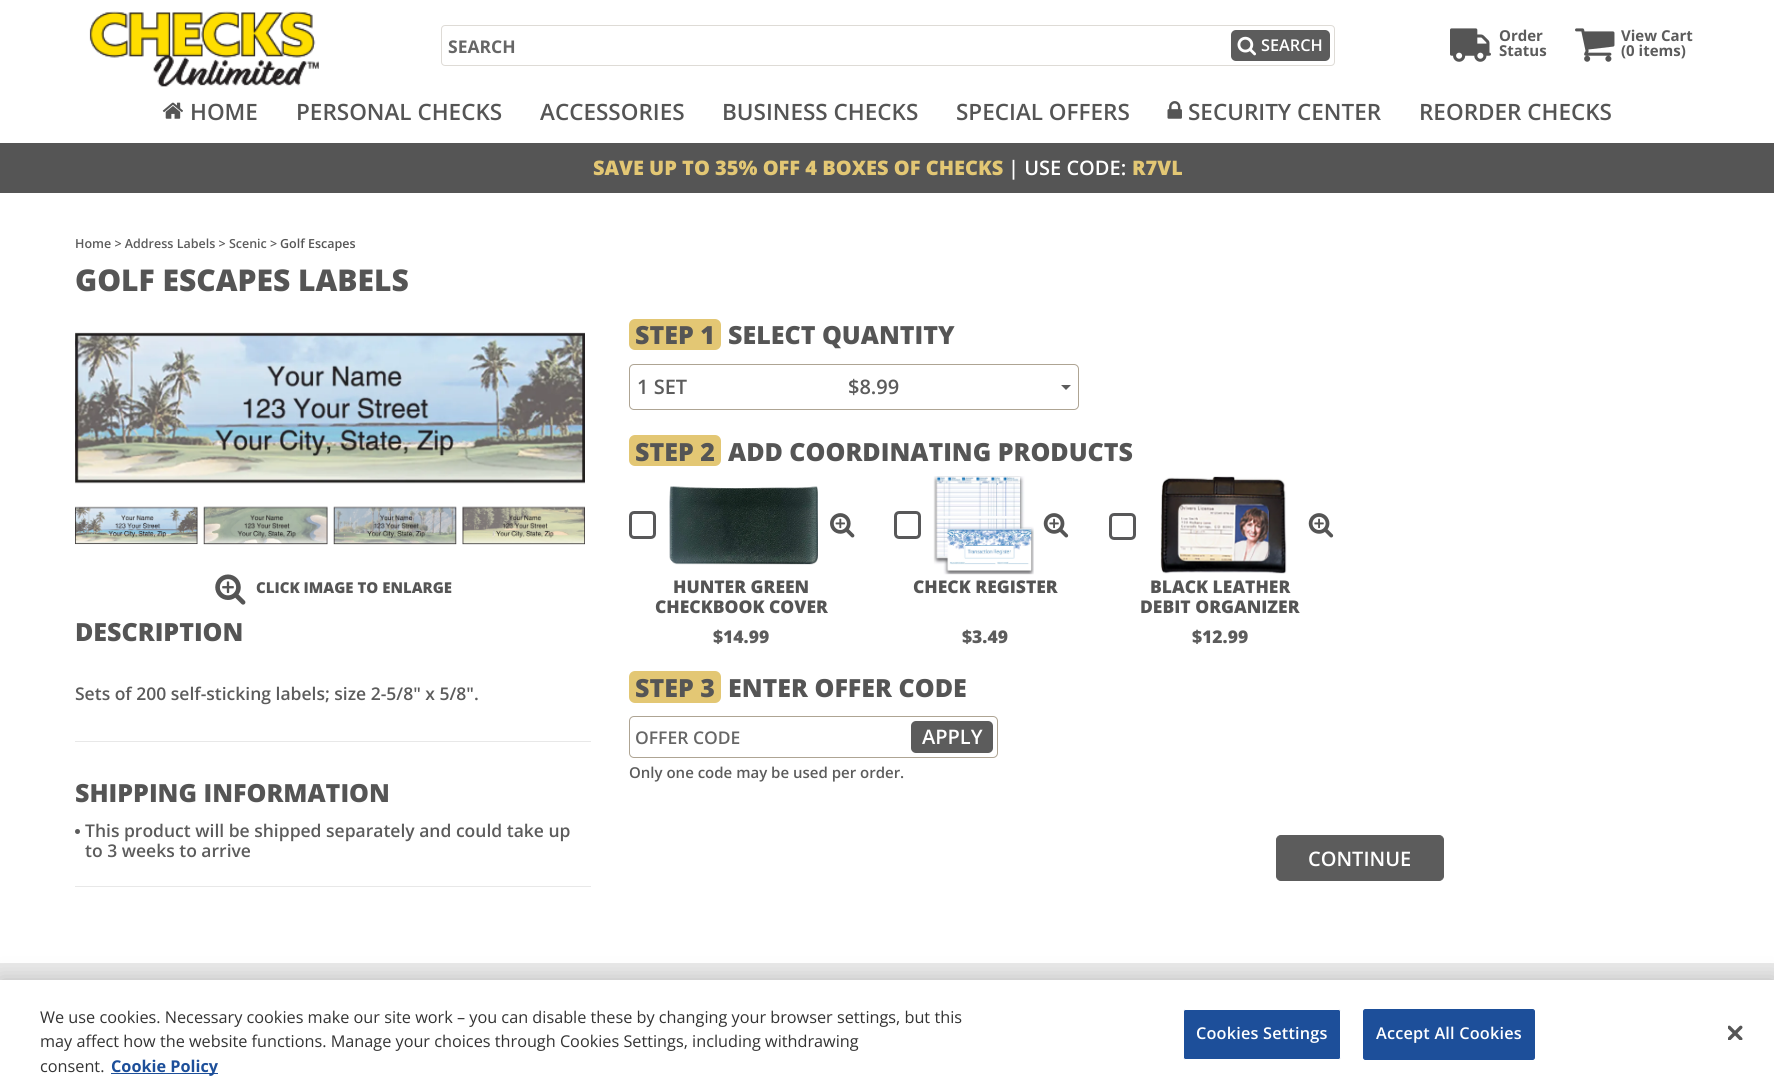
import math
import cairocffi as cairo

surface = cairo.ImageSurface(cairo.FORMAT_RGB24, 1774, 1091)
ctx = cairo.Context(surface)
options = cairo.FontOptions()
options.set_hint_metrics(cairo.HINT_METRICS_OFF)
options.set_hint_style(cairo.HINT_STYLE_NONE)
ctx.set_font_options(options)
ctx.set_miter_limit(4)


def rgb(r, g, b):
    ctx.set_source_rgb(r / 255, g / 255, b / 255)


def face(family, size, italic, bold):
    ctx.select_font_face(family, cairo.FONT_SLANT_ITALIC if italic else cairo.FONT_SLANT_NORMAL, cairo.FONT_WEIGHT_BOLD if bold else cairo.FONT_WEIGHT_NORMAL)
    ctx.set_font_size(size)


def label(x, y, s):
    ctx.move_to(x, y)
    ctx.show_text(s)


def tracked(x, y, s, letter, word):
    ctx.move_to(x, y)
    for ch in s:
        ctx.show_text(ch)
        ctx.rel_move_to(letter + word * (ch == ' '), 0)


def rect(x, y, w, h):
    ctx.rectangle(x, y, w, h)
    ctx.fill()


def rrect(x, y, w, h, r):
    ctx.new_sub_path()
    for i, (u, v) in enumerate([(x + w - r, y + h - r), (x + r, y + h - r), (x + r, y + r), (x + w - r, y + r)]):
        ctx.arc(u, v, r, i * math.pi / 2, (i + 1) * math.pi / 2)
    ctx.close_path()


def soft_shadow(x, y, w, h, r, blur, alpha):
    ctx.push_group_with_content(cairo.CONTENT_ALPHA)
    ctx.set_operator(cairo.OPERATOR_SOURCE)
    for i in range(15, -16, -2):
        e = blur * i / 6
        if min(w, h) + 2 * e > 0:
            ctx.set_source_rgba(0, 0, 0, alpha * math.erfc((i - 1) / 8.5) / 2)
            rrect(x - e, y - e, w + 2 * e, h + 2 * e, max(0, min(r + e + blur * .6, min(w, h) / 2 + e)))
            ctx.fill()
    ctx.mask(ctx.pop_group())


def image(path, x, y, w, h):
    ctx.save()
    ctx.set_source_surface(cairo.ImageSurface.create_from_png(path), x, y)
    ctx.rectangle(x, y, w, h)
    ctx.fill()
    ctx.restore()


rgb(255, 255, 255)
ctx.paint()
image('image0.png', 89, 11, 230, 76)
rrect(441.5, 25.5, 893, 40, 3.5)
rgb(222, 219, 214)
ctx.set_line_width(1)
ctx.stroke()
face('Open Sans', 17.5, 0, 1)
rgb(102, 102, 102)
label(448, 53, 'SEARCH')
rgb(92, 92, 92)
rrect(1231, 30, 99, 31, 5)
ctx.fill()
image('image1.png', 1237, 36, 19, 20)
face('Open Sans SemiBold', 16.25, 0, 0)
rgb(255, 255, 255)
label(1261, 51, 'SEARCH')
image('image2.png', 1450, 28, 41, 34)
face('Open Sans', 15, 0, 1)
rgb(92, 92, 92)
label(1499, 41, 'Order')
label(1499, 56, 'Status')
image('image3.png', 1575, 28, 40, 34)
label(1621, 41, 'View Cart')
label(1621, 56, '(0 items)')
image('image4.png', 162, 102, 21, 17)
face('Open Sans SemiBold', 22.5, 0, 0)
rgb(85, 85, 85)
label(190, 120, 'HOME')
label(296, 120, 'PERSONAL CHECKS')
label(540, 120, 'ACCESSORIES')
label(722, 120, 'BUSINESS CHECKS')
label(956, 120, 'SPECIAL OFFERS')
image('image5.png', 1167, 101, 15, 18)
label(1188, 120, 'SECURITY CENTER')
label(1419, 120, 'REORDER CHECKS')
rect(0, 143, 1774, 50)
face('Open Sans ExtraBold', 20, 0, 0)
rgb(227, 199, 116)
label(593, 175, 'SAVE UP TO 35% OFF 4 BOXES OF CHECKS')
face('Open Sans SemiBold', 20, 0, 0)
rgb(255, 255, 255)
label(1008, 175, '| USE CODE:')
face('Open Sans ExtraBold', 20, 0, 0)
rgb(227, 199, 116)
label(1132, 175, 'R7VL')
face('Open Sans SemiBold', 12.5, 0, 0)
rgb(92, 92, 92)
label(75, 248, 'Home > Address Labels > Scenic >')
rgb(85, 85, 85)
label(280, 248, 'Golf Escapes')
face('Open Sans ExtraBold', 30, 0, 0)
label(75, 291, 'GOLF ESCAPES LABELS')
image('image6.png', 75, 332, 510, 152)
image('image7.png', 75, 506, 123, 39)
image('image8.png', 203, 506, 125, 39)
image('image9.png', 333, 506, 124, 39)
image('image10.png', 462, 506, 123, 39)
image('image11.png', 215, 574, 31, 31)
face('Open Sans ExtraBold', 15, 0, 0)
label(256, 593, 'CLICK IMAGE TO ENLARGE')
face('Open Sans ExtraBold', 25, 0, 0)
label(75, 641, 'DESCRIPTION')
face('Open Sans SemiBold', 17.5, 0, 0)
rgb(92, 92, 92)
label(75, 700, 'Sets of 200 self-sticking labels; size 2-5/8" x 5/8".')
rgb(232, 232, 232)
rect(75, 741, 516, 1)
face('Open Sans ExtraBold', 25, 0, 0)
rgb(85, 85, 85)
label(75, 802, 'SHIPPING INFORMATION')
rgb(92, 92, 92)
ctx.new_path()
ctx.arc(77.5, 831.5, 2.5, 0, 2 * math.pi)
ctx.fill()
face('Open Sans SemiBold', 17.5, 0, 0)
label(85, 837, 'This product will be shipped separately and could take up')
label(85, 857, 'to 3 weeks to arrive')
rgb(232, 232, 232)
rect(75, 886, 516, 1)
rgb(227, 199, 116)
rrect(629, 319, 92, 31, 6)
ctx.fill()
face('Open Sans ExtraBold', 25, 0, 0)
rgb(85, 85, 85)
label(635, 344, 'STEP 1')
label(728, 344, 'SELECT QUANTITY')
rrect(629.5, 364.5, 449, 45, 4.5)
rgb(174, 164, 147)
ctx.stroke()
face('Open Sans SemiBold', 20, 0, 0)
rgb(92, 92, 92)
label(637, 394, '1 SET')
label(848, 394, '$8.99')
ctx.new_path()
ctx.move_to(1061, 385)
ctx.line_to(1071, 385)
ctx.line_to(1066, 390)
ctx.close_path()
ctx.fill()
rgb(227, 199, 116)
rrect(629, 435, 92, 31, 6)
ctx.fill()
face('Open Sans ExtraBold', 25, 0, 0)
rgb(85, 85, 85)
label(635, 461, 'STEP 2')
label(728, 461, 'ADD COORDINATING PRODUCTS')
rrect(630.5, 512.5, 24, 25, 3.5)
rgb(88, 88, 89)
ctx.set_line_width(3)
ctx.stroke()
image('image12.png', 669, 486, 149, 79)
image('image13.png', 830, 513, 25, 25)
face('Open Sans ExtraBold', 17.5, 0, 0)
rgb(85, 85, 85)
label(673, 593, 'HUNTER GREEN')
label(655, 613, 'CHECKBOOK COVER')
rgb(92, 92, 92)
label(713, 643, '$14.99')
rrect(895.5, 512.5, 24, 25, 3.5)
rgb(88, 88, 89)
ctx.stroke()
image('image14.png', 933, 476, 101, 99)
image('image15.png', 1043, 513, 26, 25)
rgb(85, 85, 85)
label(913, 593, 'CHECK REGISTER')
rgb(92, 92, 92)
label(962, 643, '$3.49')
rrect(1110.5, 514.5, 24, 24, 3.5)
rgb(88, 88, 89)
ctx.stroke()
image('image16.png', 1160, 476, 127, 98)
image('image15.png', 1308, 513, 26, 25)
rgb(85, 85, 85)
label(1150, 593, 'BLACK LEATHER')
label(1140, 613, 'DEBIT ORGANIZER')
rgb(92, 92, 92)
label(1192, 643, '$12.99')
rgb(227, 199, 116)
rrect(629, 671, 92, 32, 6)
ctx.fill()
face('Open Sans ExtraBold', 25, 0, 0)
rgb(85, 85, 85)
label(635, 697, 'STEP 3')
label(728, 697, 'ENTER OFFER CODE')
rrect(629.5, 716.5, 368, 41, 4.5)
rgb(174, 164, 147)
ctx.set_line_width(1)
ctx.stroke()
face('Open Sans SemiBold', 17.5, 0, 0)
rgb(102, 102, 102)
label(635, 744, 'OFFER CODE')
rgb(92, 92, 92)
rrect(911, 721, 82, 32, 5)
ctx.fill()
face('Open Sans SemiBold', 20, 0, 0)
rgb(255, 255, 255)
label(922, 744, 'APPLY')
face('Open Sans SemiBold', 15, 0, 0)
rgb(92, 92, 92)
label(629, 778, 'Only one code may be used per order.')
rrect(1276.5, 835.5, 167, 45, 4.5)
ctx.fill_preserve()
ctx.stroke()
face('Open Sans SemiBold', 20, 0, 0)
rgb(255, 255, 255)
label(1308, 866, 'CONTINUE')
rgb(233, 233, 233)
rect(0, 963, 1774, 17)
rgb(0, 0, 0)
soft_shadow(0, 980, 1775, 111, 0, 11, 0.2)
rgb(255, 255, 255)
rect(0, 980, 1774, 111)
face('Open Sans', 16.25, 0, 0)
rgb(51, 51, 51)
label(40, 1023, 'We use cookies. Necessary cookies make our site work – you can disable these by changing your browser settings, but this')
label(40, 1047, 'may affect how the website functions. Manage your choices through Cookies Settings, including withdrawing')
label(40, 1072, 'consent.')
rgb(29, 79, 154)
rect(111, 1073, 107, 1)
face('Open Sans', 16.25, 0, 1)
label(111, 1072, 'Cookie Policy')
rrect(1183.5, 1009.5, 157, 50, 2)
ctx.fill_preserve()
rgb(255, 255, 255)
ctx.stroke()
face('Open Sans SemiBold', 16.25, 0, 0)
tracked(1196, 1039, 'Cookies Settings', 0.2, 0)
rgb(29, 79, 154)
rrect(1363.5, 1009.5, 171, 50, 2)
ctx.fill_preserve()
ctx.stroke()
rgb(255, 255, 255)
tracked(1376, 1039, 'Accept All Cookies', 0.2, 0)
image('image17.png', 1728, 1025, 15, 15)
surface.write_to_png('render.png')
